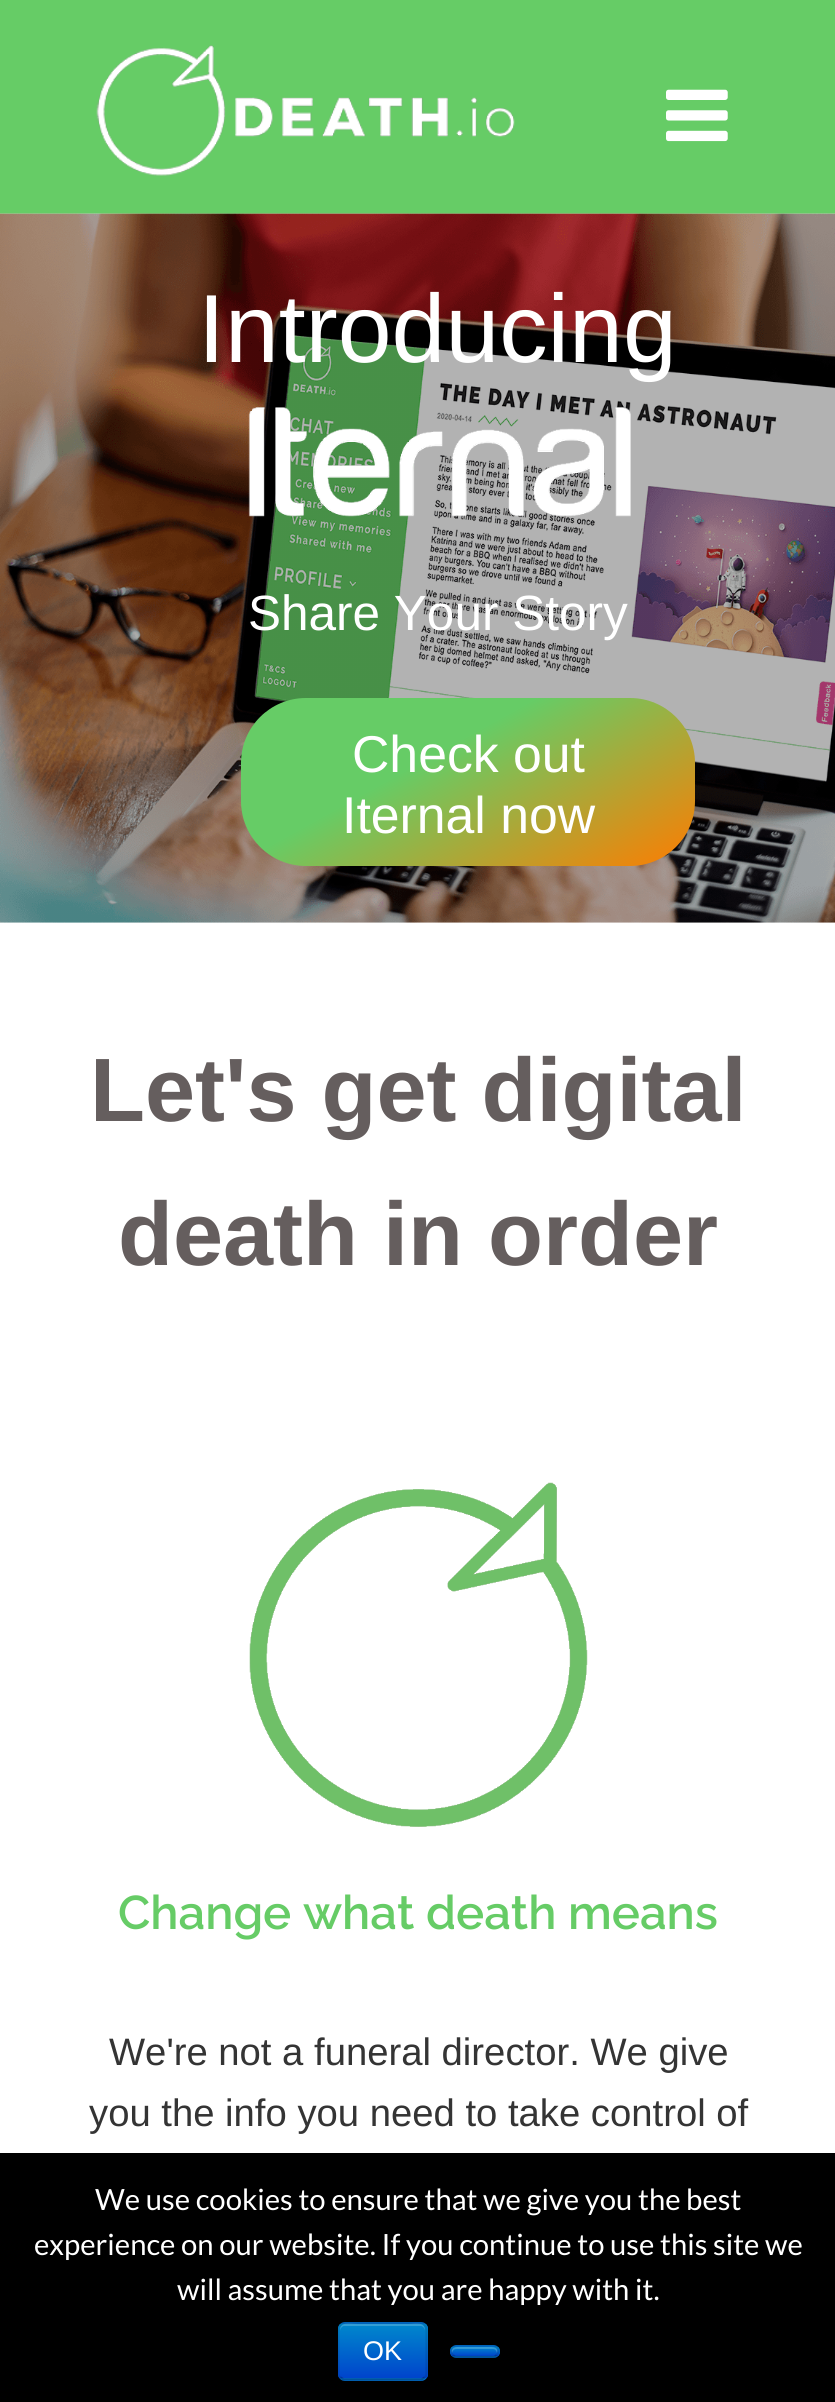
import math
import cairocffi as cairo

surface = cairo.ImageSurface(cairo.FORMAT_RGB24, 835, 2402)
ctx = cairo.Context(surface)
options = cairo.FontOptions()
options.set_hint_metrics(cairo.HINT_METRICS_OFF)
options.set_hint_style(cairo.HINT_STYLE_NONE)
ctx.set_font_options(options)
ctx.set_miter_limit(4)


def rgb(r, g, b):
    ctx.set_source_rgb(r / 255, g / 255, b / 255)


def face(family, size, italic, bold):
    ctx.select_font_face(family, cairo.FONT_SLANT_ITALIC if italic else cairo.FONT_SLANT_NORMAL, cairo.FONT_WEIGHT_BOLD if bold else cairo.FONT_WEIGHT_NORMAL)
    ctx.set_font_size(size)


def label(x, y, s):
    ctx.move_to(x, y)
    ctx.show_text(s)


def rect(x, y, w, h):
    ctx.rectangle(x, y, w, h)
    ctx.fill()


def rrect(x, y, w, h, r):
    ctx.new_sub_path()
    for i, (u, v) in enumerate([(x + w - r, y + h - r), (x + r, y + h - r), (x + r, y + r), (x + w - r, y + r)]):
        ctx.arc(u, v, r, i * math.pi / 2, (i + 1) * math.pi / 2)
    ctx.close_path()


def image(path, x, y, w, h):
    ctx.save()
    ctx.set_source_surface(cairo.ImageSurface.create_from_png(path), x, y)
    ctx.rectangle(x, y, w, h)
    ctx.fill()
    ctx.restore()


rgb(255, 255, 255)
ctx.paint()
rgb(102, 204, 102)
rect(0, 0, 835, 214)
image('image0.png', 96, 45, 419, 131)
image('image1.png', 666, 89, 62, 53)
image('image2.png', 0, 213, 835, 710)
face('Liberation Sans', 96.75, 0, 0)
rgb(255, 255, 255)
label(198, 362, 'Introducing')
image('image3.png', 248, 407, 383, 110)
face('Liberation Sans', 49.5, 0, 0)
label(248, 630, 'Share Your Story')
gradient = cairo.LinearGradient(379, 621, 557, 943)
gradient.add_color_stop_rgba(0.39, 0.4, 0.8, 0.4, 1)
gradient.add_color_stop_rgba(1, 1, 0.486, 0, 1)
ctx.set_source(gradient)
rrect(241, 698, 454, 168, 65)
ctx.fill()
face('Liberation Sans', 51.75, 0, 0)
rgb(255, 255, 255)
label(352, 772, 'Check out')
label(342, 833, 'Iternal now')
face('Liberation Sans', 90, 0, 1)
rgb(101, 94, 94)
label(90, 1121, 'Let\'s get digital')
label(118, 1265, 'death in order')
image('image4.png', 249, 1482, 339, 345)
face('Raleway SemiBold', 47.25, 0, 0)
rgb(102, 204, 102)
label(118, 1929, 'Change what death means')
face('Liberation Sans', 38.25, 0, 0)
rgb(52, 52, 52)
label(109, 2065, 'We\'re not a funeral director. We give')
label(89, 2126, 'you the info you need to take control of')
rgb(0, 0, 0)
rect(0, 2153, 835, 249)
face('Lato', 29.25, 0, 0)
rgb(255, 255, 255)
label(95, 2210, 'We use cookies to ensure that we give you the best')
label(34, 2255, 'experience on our website. If you continue to use this site we')
label(177, 2300, 'will assume that you are happy with it.')
rgb(0, 109, 204)
rrect(338, 2322, 90, 59, 7)
ctx.fill()
ctx.save()
rrect(338, 2322, 90, 59, 7)
ctx.clip()
gradient = cairo.LinearGradient(383, 2324, 383, 2378)
gradient.add_color_stop_rgba(0, 0, 0.533, 0.8, 1)
gradient.add_color_stop_rgba(1, 0, 0.267, 0.8, 1)
ctx.set_source(gradient)
rect(338, 2324, 90, 54)
ctx.restore()
ctx.set_source_rgba(1, 1, 1, 0.2)
ctx.new_path()
ctx.move_to(344, 2326)
ctx.line_to(421, 2326)
ctx.curve_to(423, 2326, 425, 2329, 425, 2331)
ctx.curve_to(425, 2321, 416, 2324, 408, 2324)
ctx.line_to(358, 2324)
ctx.curve_to(349, 2324, 340, 2321, 340, 2331)
ctx.curve_to(340, 2329, 342, 2326, 344, 2326)
ctx.close_path()
ctx.fill()
ctx.new_path()
ctx.move_to(424.5, 2377.5)
ctx.line_to(421.5, 2379.5)
ctx.line_to(343.5, 2379.5)
ctx.line_to(340.5, 2377.5)
ctx.set_source_rgba(0, 0, 0, 0.25)
ctx.set_line_width(2.2)
ctx.stroke()
ctx.new_path()
ctx.move_to(340.5, 2377.5)
ctx.curve_to(339, 2376.5, 338.5, 2375, 338.5, 2374)
ctx.line_to(338.5, 2329)
ctx.curve_to(338.5, 2327.5, 339, 2326, 340.5, 2325)
ctx.curve_to(341.5, 2323.5, 343, 2323, 344, 2323)
ctx.line_to(421, 2323)
ctx.curve_to(422, 2323, 423.5, 2323.5, 424.5, 2325)
ctx.curve_to(426, 2326, 426.5, 2327.5, 426.5, 2329)
ctx.line_to(426.5, 2374)
ctx.curve_to(426.5, 2375, 426, 2376.5, 424.5, 2377.5)
ctx.set_source_rgba(0, 0, 0, 0.1)
ctx.stroke()
face('Liberation Sans', 27, 0, 0)
rgb(255, 255, 255)
label(363, 2360, 'OK')
rgb(0, 109, 204)
rrect(450, 2345, 50, 13, 6.5)
ctx.fill()
ctx.save()
rrect(450, 2345, 50, 13, 6.5)
ctx.clip()
gradient = cairo.LinearGradient(475, 2347, 475, 2356)
gradient.add_color_stop_rgba(0, 0, 0.533, 0.8, 1)
gradient.add_color_stop_rgba(1, 0, 0.267, 0.8, 1)
ctx.set_source(gradient)
rect(450, 2347, 50, 9)
ctx.restore()
ctx.set_source_rgba(1, 1, 1, 0.2)
ctx.new_path()
ctx.move_to(457, 2349)
ctx.line_to(493, 2349)
ctx.curve_to(495, 2349, 496, 2350, 497, 2353)
ctx.curve_to(499, 2346, 490, 2347, 486, 2347)
ctx.line_to(462, 2347)
ctx.curve_to(459, 2347, 450, 2346, 452, 2353)
ctx.curve_to(453, 2350, 454, 2349, 457, 2349)
ctx.close_path()
ctx.fill()
ctx.new_path()
ctx.move_to(496.5, 2355)
ctx.curve_to(495.5, 2356.5, 494, 2357, 493, 2357)
ctx.line_to(457, 2357)
ctx.curve_to(455.5, 2357, 454, 2356.5, 453, 2355)
ctx.set_source_rgba(0, 0, 0, 0.25)
ctx.stroke()
ctx.new_path()
ctx.move_to(453, 2355)
ctx.curve_to(451.5, 2354, 451, 2352, 451, 2350)
ctx.curve_to(452.5, 2344.5, 458.5, 2345.5, 463, 2345.5)
ctx.line_to(487, 2345.5)
ctx.curve_to(491, 2345.5, 497, 2344.5, 498.5, 2350)
ctx.curve_to(498.5, 2352, 498, 2354, 496.5, 2355)
ctx.set_source_rgba(0, 0, 0, 0.1)
ctx.stroke()
surface.write_to_png('render.png')
